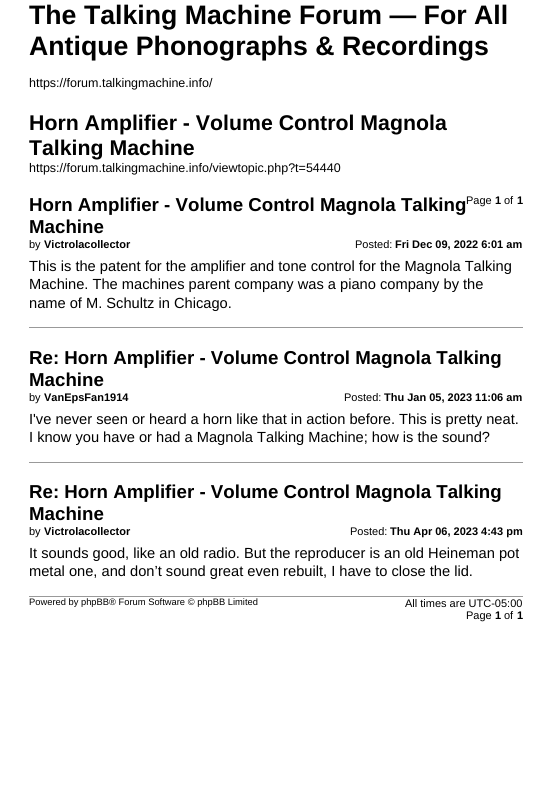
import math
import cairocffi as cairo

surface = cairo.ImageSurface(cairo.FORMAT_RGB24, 552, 794)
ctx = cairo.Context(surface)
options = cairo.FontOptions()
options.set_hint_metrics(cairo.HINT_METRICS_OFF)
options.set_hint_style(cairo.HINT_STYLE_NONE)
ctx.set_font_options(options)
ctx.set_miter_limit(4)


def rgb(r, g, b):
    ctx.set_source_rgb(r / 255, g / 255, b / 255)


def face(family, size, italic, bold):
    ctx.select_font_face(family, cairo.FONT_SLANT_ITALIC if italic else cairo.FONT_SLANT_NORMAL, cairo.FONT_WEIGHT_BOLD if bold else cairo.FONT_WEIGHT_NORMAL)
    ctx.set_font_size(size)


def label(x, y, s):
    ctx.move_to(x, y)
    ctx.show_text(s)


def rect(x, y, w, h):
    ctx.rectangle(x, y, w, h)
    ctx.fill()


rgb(255, 255, 255)
ctx.paint()
face('Liberation Sans', 26.7, 0, 1)
rgb(0, 0, 0)
label(29, 24, 'The Talking Machine Forum — For All')
label(29, 55, 'Antique Phonographs & Recordings')
face('Liberation Sans', 12.5, 0, 0)
label(29, 87, 'https://forum.talkingmachine.info/')
face('Liberation Sans', 21.3, 0, 1)
label(29, 130, 'Horn Amplifier - Volume Control Magnola')
label(29, 155, 'Talking Machine')
face('Liberation Sans', 12.5, 0, 0)
label(29, 172, 'https://forum.talkingmachine.info/viewtopic.php?t=54440')
face('Liberation Sans', 11, 0, 0)
label(466, 204, 'Page')
face('Liberation Sans', 11, 0, 1)
label(495, 204, '1')
face('Liberation Sans', 11, 0, 0)
label(504, 204, 'of')
face('Liberation Sans', 11, 0, 1)
label(517, 204, '1')
face('Liberation Sans', 18.7, 0, 1)
label(29, 211, 'Horn Amplifier - Volume Control Magnola Talking')
label(29, 233, 'Machine')
face('Liberation Sans', 11, 0, 0)
label(29, 248, 'by')
face('Liberation Sans', 11, 0, 1)
label(44, 248, 'Victrolacollector')
face('Liberation Sans', 11, 0, 0)
label(355, 248, 'Posted:')
face('Liberation Sans', 11, 0, 1)
label(395, 248, 'Fri Dec 09, 2022 6:01 am')
face('Liberation Sans', 14.65, 0, 0)
label(29, 271, 'This is the patent for the amplifier and tone control for the Magnola Talking')
label(29, 289, 'Machine. The machines parent company was a piano company by the')
label(29, 308, 'name of M. Schultz in Chicago.')
rgb(153, 153, 153)
rect(29, 327, 494, 1)
face('Liberation Sans', 18.7, 0, 1)
rgb(0, 0, 0)
label(29, 364, 'Re: Horn Amplifier - Volume Control Magnola Talking')
label(29, 386, 'Machine')
face('Liberation Sans', 11, 0, 0)
label(29, 401, 'by')
face('Liberation Sans', 11, 0, 1)
label(44, 401, 'VanEpsFan1914')
face('Liberation Sans', 11, 0, 0)
label(344, 401, 'Posted:')
face('Liberation Sans', 11, 0, 1)
label(384, 401, 'Thu Jan 05, 2023 11:06 am')
face('Liberation Sans', 14.65, 0, 0)
label(29, 424, 'I\'ve never seen or heard a horn like that in action before. This is pretty neat.')
label(29, 442, 'I know you have or had a Magnola Talking Machine; how is the sound?')
rgb(153, 153, 153)
rect(29, 462, 494, 1)
face('Liberation Sans', 18.7, 0, 1)
rgb(0, 0, 0)
label(29, 498, 'Re: Horn Amplifier - Volume Control Magnola Talking')
label(29, 520, 'Machine')
face('Liberation Sans', 11, 0, 0)
label(29, 535, 'by')
face('Liberation Sans', 11, 0, 1)
label(44, 535, 'Victrolacollector')
face('Liberation Sans', 11, 0, 0)
label(350, 535, 'Posted:')
face('Liberation Sans', 11, 0, 1)
label(390, 535, 'Thu Apr 06, 2023 4:43 pm')
face('Liberation Sans', 14.65, 0, 0)
label(29, 558, 'It sounds good, like an old radio. But the reproducer is an old Heineman pot')
label(29, 576, 'metal one, and don’t sound great even rebuilt, I have to close the lid.')
rgb(153, 153, 153)
rect(29, 596, 494, 1)
face('Liberation Sans', 9.35, 0, 0)
rgb(0, 0, 0)
label(29, 605, 'Powered by phpBB® Forum Software © phpBB Limited')
face('Liberation Sans', 11, 0, 0)
label(405, 607, 'All times are UTC-05:00')
label(466, 619, 'Page')
face('Liberation Sans', 11, 0, 1)
label(495, 619, '1')
face('Liberation Sans', 11, 0, 0)
label(504, 619, 'of')
face('Liberation Sans', 11, 0, 1)
label(517, 619, '1')
surface.write_to_png('render.png')
